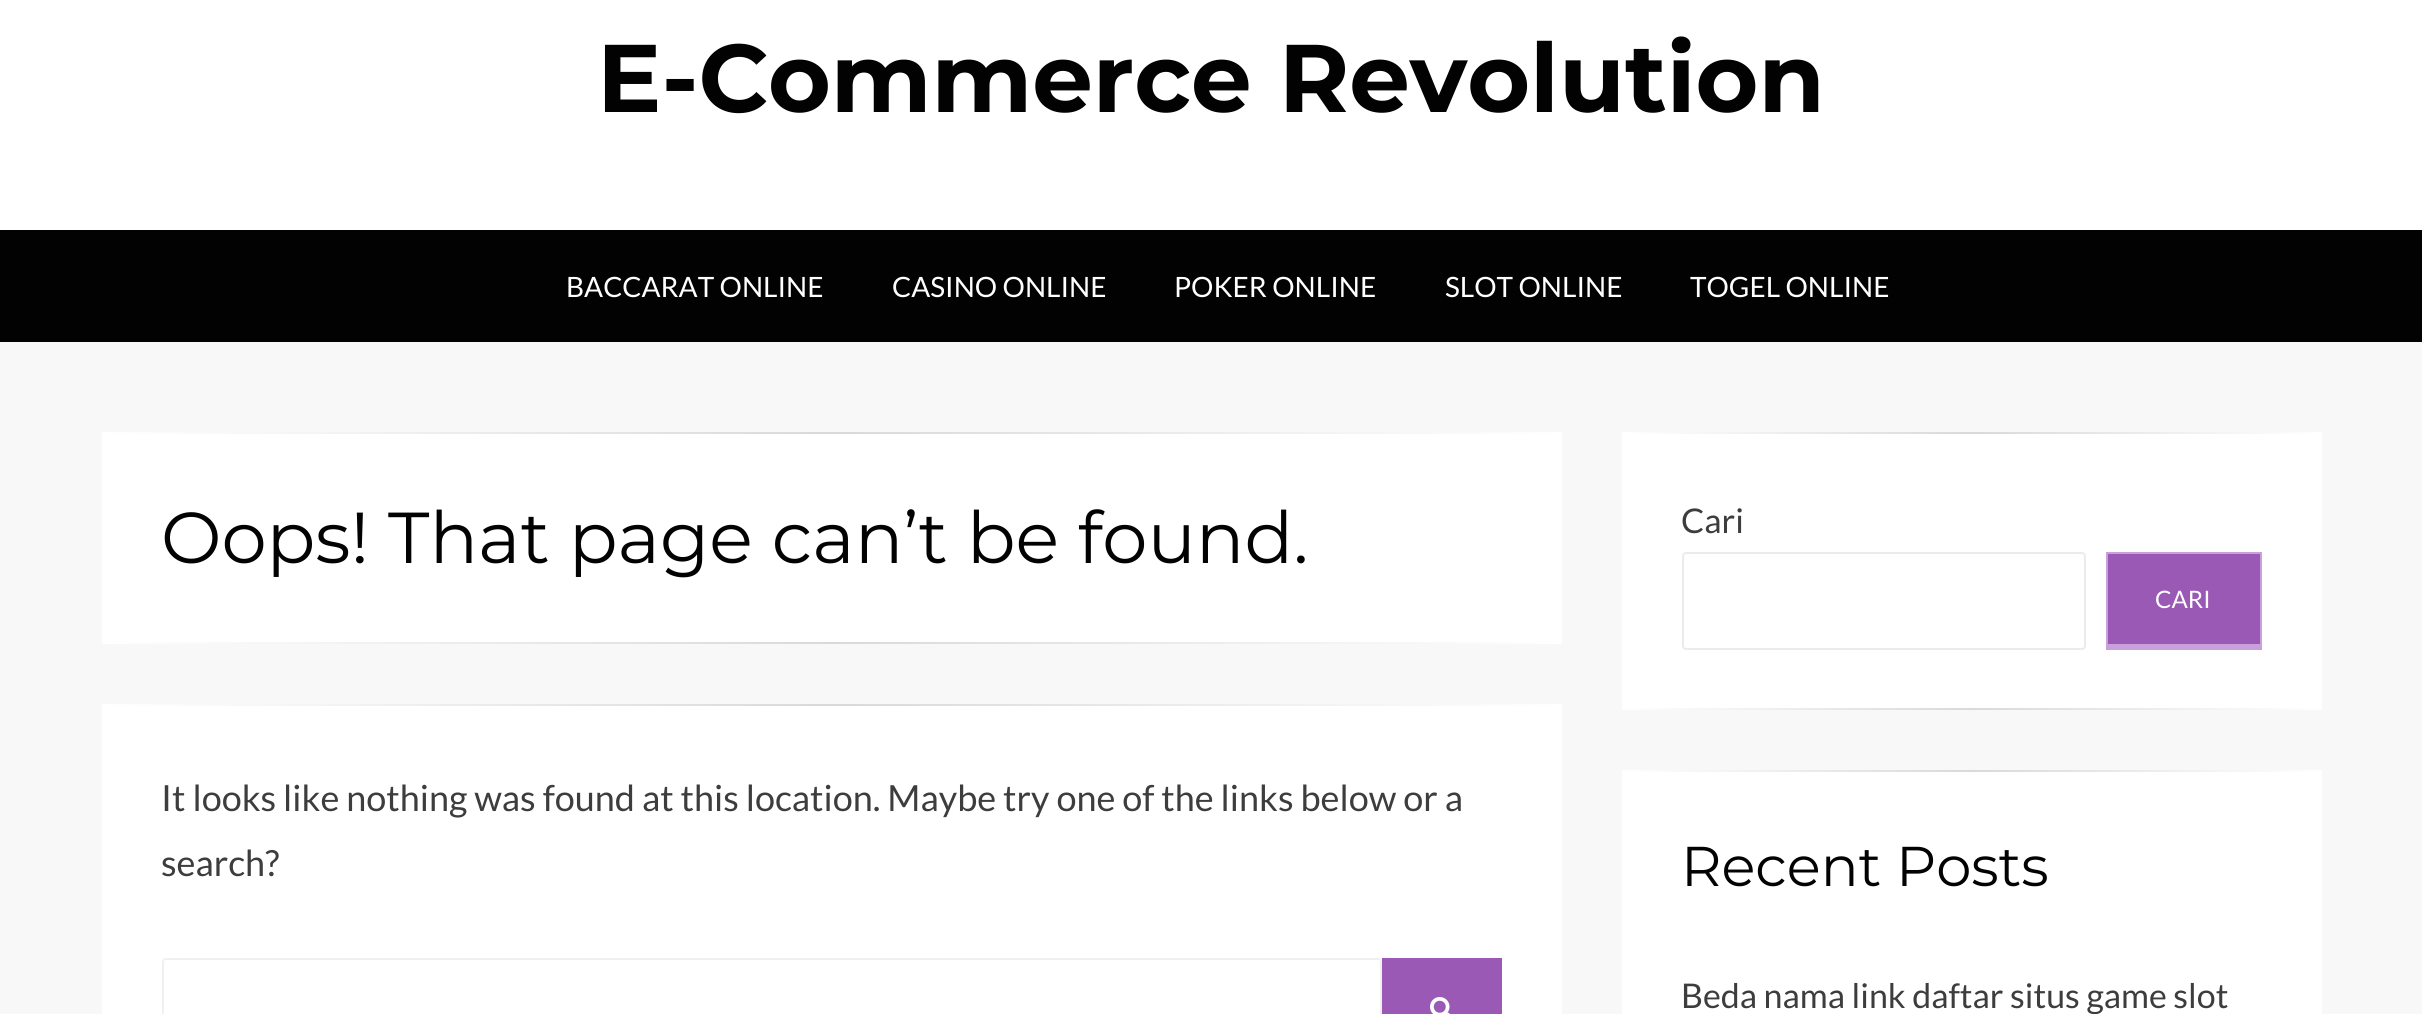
import math
import cairocffi as cairo

surface = cairo.ImageSurface(cairo.FORMAT_RGB24, 2422, 1014)
ctx = cairo.Context(surface)
options = cairo.FontOptions()
options.set_hint_metrics(cairo.HINT_METRICS_OFF)
options.set_hint_style(cairo.HINT_STYLE_NONE)
ctx.set_font_options(options)
ctx.set_miter_limit(4)


def rgb(r, g, b):
    ctx.set_source_rgb(r / 255, g / 255, b / 255)


def face(family, size, italic, bold):
    ctx.select_font_face(family, cairo.FONT_SLANT_ITALIC if italic else cairo.FONT_SLANT_NORMAL, cairo.FONT_WEIGHT_BOLD if bold else cairo.FONT_WEIGHT_NORMAL)
    ctx.set_font_size(size)


def label(x, y, s):
    ctx.move_to(x, y)
    ctx.show_text(s)


def rect(x, y, w, h):
    ctx.rectangle(x, y, w, h)
    ctx.fill()


def rrect(x, y, w, h, r):
    ctx.new_sub_path()
    for i, (u, v) in enumerate([(x + w - r, y + h - r), (x + r, y + h - r), (x + r, y + r), (x + w - r, y + r)]):
        ctx.arc(u, v, r, i * math.pi / 2, (i + 1) * math.pi / 2)
    ctx.close_path()


def image(path, x, y, w, h):
    ctx.save()
    ctx.set_source_surface(cairo.ImageSurface.create_from_png(path), x, y)
    ctx.rectangle(x, y, w, h)
    ctx.fill()
    ctx.restore()


rgb(248, 248, 248)
ctx.paint()
rgb(255, 255, 255)
rect(0, 0, 2422, 230)
face('Montserrat', 96, 0, 1)
rgb(2, 2, 2)
label(597, 112, 'E-Commerce Revolution')
rect(0, 230, 2422, 112)
face('Lato', 28, 0, 0)
rgb(255, 255, 255)
label(566, 297, 'BACCARAT ONLINE')
label(892, 297, 'CASINO ONLINE')
label(1174, 297, 'POKER ONLINE')
label(1445, 297, 'SLOT ONLINE')
label(1690, 297, 'TOGEL ONLINE')
rect(102, 434, 1460, 208)
gradient = cairo.LinearGradient(102, 433, 1562, 433)
gradient.add_color_stop_rgba(0, 1, 1, 1, 1)
gradient.add_color_stop_rgba(0.5, 0.851, 0.851, 0.851, 1)
gradient.add_color_stop_rgba(1, 1, 1, 1, 1)
ctx.set_source(gradient)
rect(102, 432, 1460, 2)
face('Montserrat', 72, 0, 0)
rgb(2, 2, 2)
label(161, 563, 'Oops! That page can’t be found.')
gradient = cairo.LinearGradient(102, 643, 1562, 643)
gradient.add_color_stop_rgba(0, 1, 1, 1, 1)
gradient.add_color_stop_rgba(0.5, 0.851, 0.851, 0.851, 1)
gradient.add_color_stop_rgba(1, 1, 1, 1, 1)
ctx.set_source(gradient)
rect(102, 642, 1460, 2)
rgb(255, 255, 255)
rect(102, 706, 1460, 308)
gradient = cairo.LinearGradient(102, 705, 1562, 705)
gradient.add_color_stop_rgba(0, 1, 1, 1, 1)
gradient.add_color_stop_rgba(0.5, 0.851, 0.851, 0.851, 1)
gradient.add_color_stop_rgba(1, 1, 1, 1, 1)
ctx.set_source(gradient)
rect(102, 704, 1460, 2)
face('Lato', 36, 0, 0)
rgb(61, 61, 61)
label(161, 811, 'It looks like nothing was found at this location. Maybe try one of the links below or a')
label(161, 876, 'search?')
rrect(163, 959, 1218, 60, 3)
rgb(240, 240, 240)
ctx.stroke()
rgb(155, 89, 182)
rect(1382, 958, 120, 56)
image('image0.png', 1430, 997, 20, 17)
rgb(255, 255, 255)
rect(1622, 434, 700, 274)
gradient = cairo.LinearGradient(1622, 433, 2322, 433)
gradient.add_color_stop_rgba(0, 1, 1, 1, 1)
gradient.add_color_stop_rgba(0.5, 0.851, 0.851, 0.851, 1)
gradient.add_color_stop_rgba(1, 1, 1, 1, 1)
ctx.set_source(gradient)
rect(1622, 432, 700, 2)
face('Lato', 34, 0, 0)
rgb(61, 61, 61)
label(1681, 533, 'Cari')
rrect(1683, 553, 402, 96, 3)
rgb(235, 235, 235)
ctx.stroke()
rgb(155, 89, 182)
rect(2108, 554, 152, 90)
rgb(201, 160, 220)
rect(2106, 552, 156, 2)
rect(2260, 552, 2, 98)
rect(2106, 644, 156, 6)
rect(2106, 552, 2, 98)
face('Lato', 24, 0, 0)
rgb(255, 255, 255)
label(2155, 608, 'CARI')
gradient = cairo.LinearGradient(1622, 709, 2322, 709)
gradient.add_color_stop_rgba(0, 1, 1, 1, 1)
gradient.add_color_stop_rgba(0.5, 0.851, 0.851, 0.851, 1)
gradient.add_color_stop_rgba(1, 1, 1, 1, 1)
ctx.set_source(gradient)
rect(1622, 708, 700, 2)
rgb(255, 255, 255)
rect(1622, 772, 700, 242)
gradient = cairo.LinearGradient(1622, 771, 2322, 771)
gradient.add_color_stop_rgba(0, 1, 1, 1, 1)
gradient.add_color_stop_rgba(0.5, 0.851, 0.851, 0.851, 1)
gradient.add_color_stop_rgba(1, 1, 1, 1, 1)
ctx.set_source(gradient)
rect(1622, 770, 700, 2)
face('Montserrat', 56, 0, 0)
rgb(2, 2, 2)
label(1681, 886, 'Recent Posts')
face('Lato', 34, 0, 0)
rgb(61, 61, 61)
label(1681, 1008, 'Beda nama link daftar situs game slot')
surface.write_to_png('render.png')
